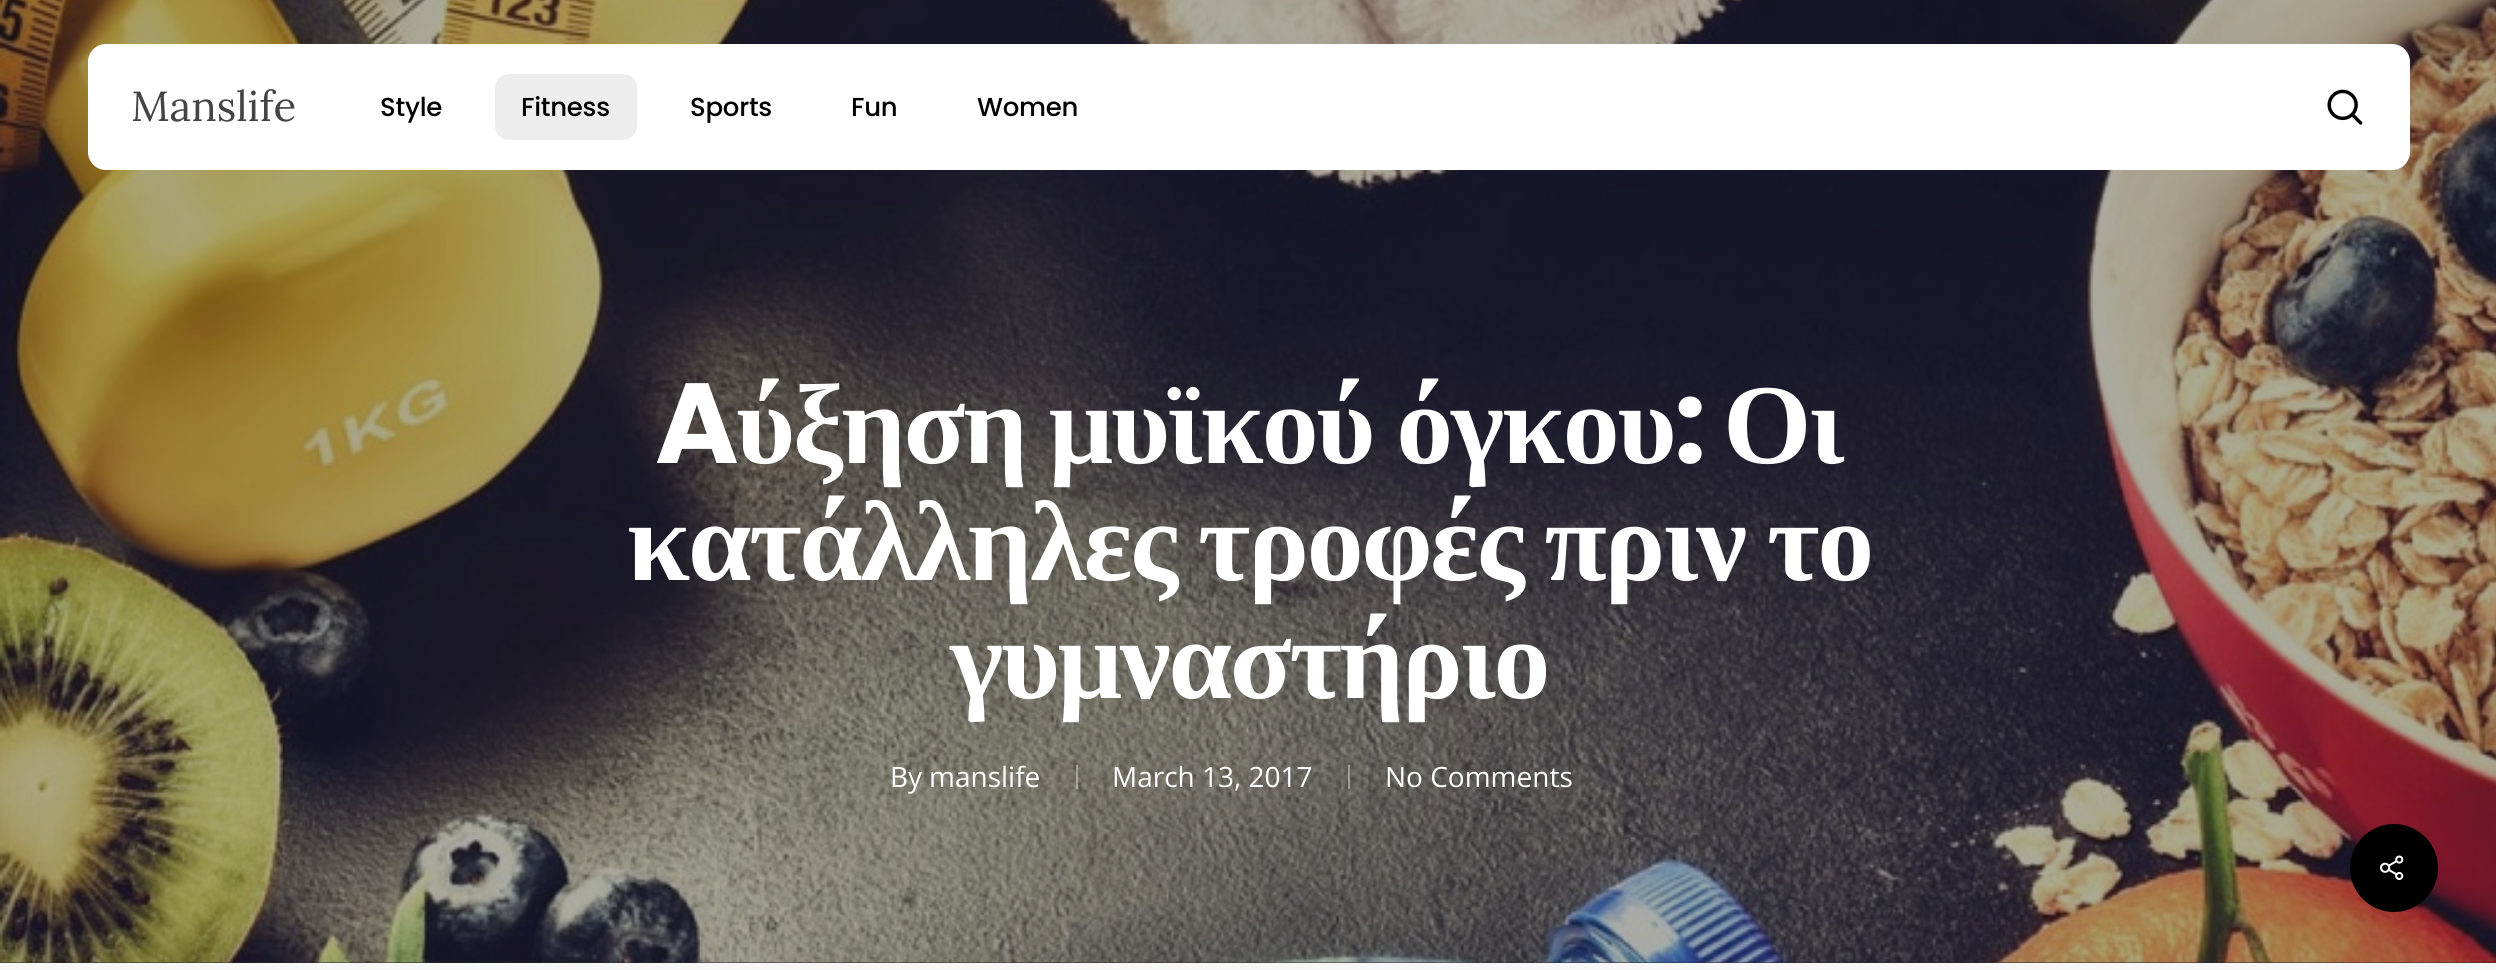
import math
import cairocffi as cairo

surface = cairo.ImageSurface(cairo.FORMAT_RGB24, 2496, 970)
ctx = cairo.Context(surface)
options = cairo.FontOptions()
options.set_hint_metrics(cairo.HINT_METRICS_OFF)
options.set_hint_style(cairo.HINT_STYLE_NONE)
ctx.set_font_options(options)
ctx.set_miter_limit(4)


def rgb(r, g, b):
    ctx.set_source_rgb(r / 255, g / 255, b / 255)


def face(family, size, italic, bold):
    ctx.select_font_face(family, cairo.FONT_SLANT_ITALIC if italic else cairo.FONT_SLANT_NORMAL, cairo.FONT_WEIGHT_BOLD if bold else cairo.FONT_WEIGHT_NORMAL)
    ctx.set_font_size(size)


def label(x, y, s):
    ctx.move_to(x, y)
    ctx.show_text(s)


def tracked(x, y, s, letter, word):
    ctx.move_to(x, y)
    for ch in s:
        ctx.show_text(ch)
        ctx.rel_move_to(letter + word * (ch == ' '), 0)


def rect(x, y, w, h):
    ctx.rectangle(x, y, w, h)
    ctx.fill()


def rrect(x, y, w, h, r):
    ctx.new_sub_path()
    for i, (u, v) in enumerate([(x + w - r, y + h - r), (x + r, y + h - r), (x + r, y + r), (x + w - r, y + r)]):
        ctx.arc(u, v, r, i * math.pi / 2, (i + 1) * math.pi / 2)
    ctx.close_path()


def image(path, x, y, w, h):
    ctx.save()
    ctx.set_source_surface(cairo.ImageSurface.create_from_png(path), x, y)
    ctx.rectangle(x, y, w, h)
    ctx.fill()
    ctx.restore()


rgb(247, 247, 247)
ctx.paint()
rgb(45, 45, 45)
rect(0, 962, 2496, 1)
image('image1.png', 0, 0, 2496, 963)
rgb(255, 255, 255)
rrect(88, 44, 2322, 126, 18)
ctx.fill()
face('Lora', 42, 0, 0)
rgb(68, 68, 68)
label(131, 121, 'Manslife')
face('Poppins Medium', 26, 0, 0)
rgb(0, 0, 0)
tracked(380, 116, 'Style', -0.25, 0)
rgb(237, 237, 237)
rrect(495, 74, 142, 66, 14)
ctx.fill()
rgb(0, 0, 0)
tracked(521, 116, 'Fitness', -0.25, 0)
tracked(690, 116, 'Sports', -0.25, 0)
tracked(851, 116, 'Fun', -0.25, 0)
tracked(977, 116, 'Women', -0.25, 0)
image('image0.png', 2327, 89, 36, 36)
face('Poppins', 113.75, 0, 1)
rgb(255, 255, 255)
tracked(655, 463, 'A', -2.25, 0)
face('Liberation Serif', 113.75, 0, 1)
tracked(736, 463, 'ύξηση μυϊκού όγκου', -2.25, -3)
face('Poppins', 113.75, 0, 1)
tracked(1674, 463, ':', -2.25, 0)
face('Liberation Serif', 113.75, 0, 1)
tracked(1723, 463, 'Οι', -2.25, 0)
tracked(627, 580, 'κατάλληλες τροφές πριν το', -2.25, -4)
tracked(950, 698, 'γυμναστήριο', -2.25, 0)
face('Open Sans', 28, 0, 0)
label(890, 787, 'By')
label(929, 787, 'manslife')
ctx.set_source_rgba(1, 1, 1, 0.4)
rect(1076, 765, 2, 24)
rgb(255, 255, 255)
label(1112, 787, 'March 13, 2017')
ctx.set_source_rgba(1, 1, 1, 0.4)
rect(1348, 765, 2, 24)
rgb(255, 255, 255)
label(1385, 787, 'No Comments')
rgb(0, 0, 0)
ctx.new_path()
ctx.arc(2394, 868, 44, 0, 2 * math.pi)
ctx.fill()
image('image2.png', 2380, 855, 24, 25)
surface.write_to_png('render.png')
